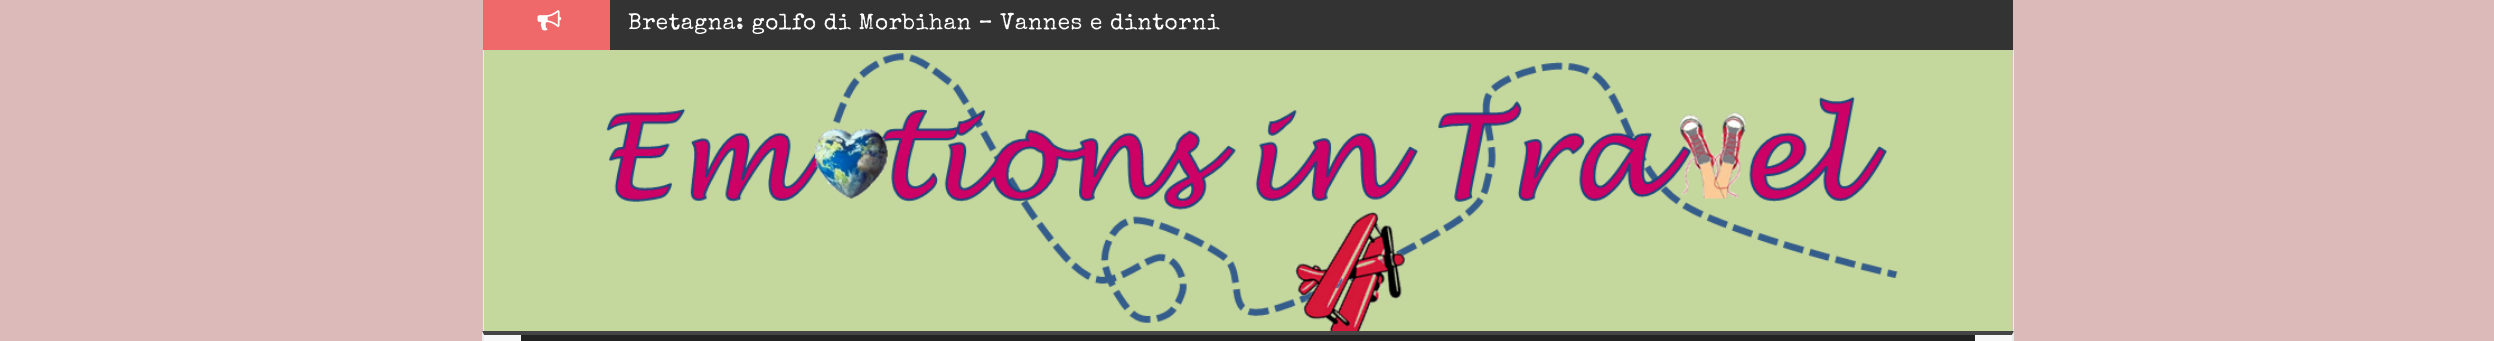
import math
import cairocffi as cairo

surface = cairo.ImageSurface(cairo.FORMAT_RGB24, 2494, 341)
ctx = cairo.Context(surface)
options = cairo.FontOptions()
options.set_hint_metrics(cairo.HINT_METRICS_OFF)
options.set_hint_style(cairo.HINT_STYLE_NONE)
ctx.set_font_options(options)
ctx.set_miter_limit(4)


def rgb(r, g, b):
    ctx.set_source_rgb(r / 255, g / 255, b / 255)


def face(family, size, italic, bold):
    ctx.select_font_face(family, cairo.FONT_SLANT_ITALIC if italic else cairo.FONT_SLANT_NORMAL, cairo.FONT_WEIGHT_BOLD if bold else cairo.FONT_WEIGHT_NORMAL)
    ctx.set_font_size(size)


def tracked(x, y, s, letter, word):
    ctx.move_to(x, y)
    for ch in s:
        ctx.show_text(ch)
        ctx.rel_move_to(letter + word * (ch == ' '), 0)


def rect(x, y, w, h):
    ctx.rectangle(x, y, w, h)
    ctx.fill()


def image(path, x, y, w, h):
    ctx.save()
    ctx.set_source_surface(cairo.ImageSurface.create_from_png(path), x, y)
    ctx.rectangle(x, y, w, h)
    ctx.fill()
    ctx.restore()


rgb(221, 186, 186)
ctx.paint()
rgb(240, 105, 106)
rect(483, 0, 127, 50)
image('image0.png', 537, 10, 25, 21)
rgb(51, 51, 51)
rect(610, 0, 1403, 50)
face('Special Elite', 22.5, 0, 0)
rgb(255, 255, 255)
tracked(628, 29, 'Bretagna: golfo di Morbihan – Vannes e dintorni', 0.6, 0)
image('image1.png', 484, 50, 1529, 281)
rgb(235, 235, 235)
rect(2013, 50, 1, 281)
rect(483, 50, 1, 281)
rgb(247, 247, 247)
rect(484, 335, 1529, 6)
rgb(68, 68, 68)
ctx.new_path()
ctx.move_to(482, 331)
ctx.line_to(2014, 331)
ctx.line_to(2012, 335)
ctx.line_to(484, 335)
ctx.close_path()
ctx.fill()
rgb(235, 235, 235)
ctx.new_path()
ctx.move_to(2014, 331)
ctx.line_to(2014, 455)
ctx.line_to(2012, 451)
ctx.line_to(2012, 335)
ctx.close_path()
ctx.fill()
ctx.new_path()
ctx.move_to(482, 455)
ctx.line_to(482, 331)
ctx.line_to(484, 335)
ctx.line_to(484, 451)
ctx.close_path()
ctx.fill()
rgb(34, 34, 34)
rect(521, 335, 1454, 6)
surface.write_to_png('render.png')
